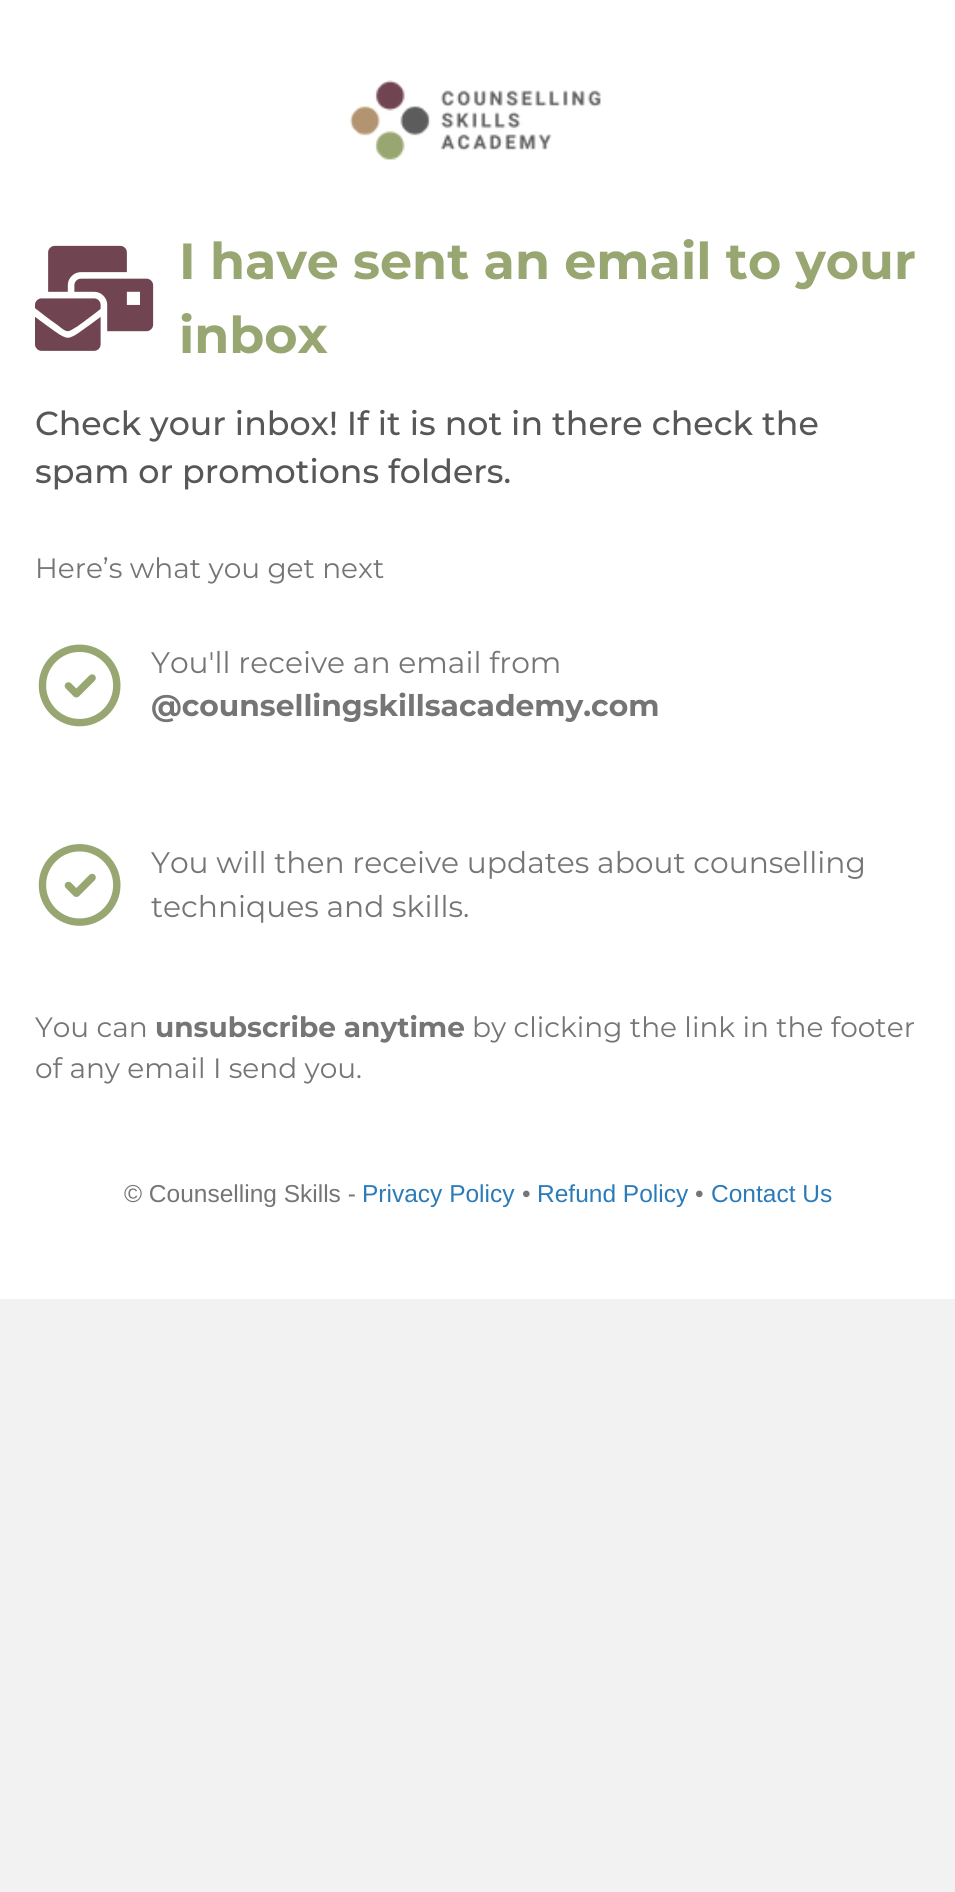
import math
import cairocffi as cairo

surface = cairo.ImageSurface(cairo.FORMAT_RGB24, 955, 1892)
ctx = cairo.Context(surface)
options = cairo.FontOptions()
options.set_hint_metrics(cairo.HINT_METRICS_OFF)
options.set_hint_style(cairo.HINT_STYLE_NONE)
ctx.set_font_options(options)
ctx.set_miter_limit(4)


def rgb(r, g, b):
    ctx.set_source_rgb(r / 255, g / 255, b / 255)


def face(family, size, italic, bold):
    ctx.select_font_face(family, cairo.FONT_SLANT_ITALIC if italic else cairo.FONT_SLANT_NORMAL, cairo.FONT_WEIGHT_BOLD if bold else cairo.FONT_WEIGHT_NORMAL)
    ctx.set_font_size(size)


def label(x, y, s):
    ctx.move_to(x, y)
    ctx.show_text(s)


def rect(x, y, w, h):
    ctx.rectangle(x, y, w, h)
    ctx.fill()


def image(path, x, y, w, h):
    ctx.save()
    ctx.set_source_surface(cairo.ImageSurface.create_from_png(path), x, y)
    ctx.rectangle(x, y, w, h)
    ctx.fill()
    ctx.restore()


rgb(242, 242, 242)
ctx.paint()
rgb(255, 255, 255)
rect(0, 0, 955, 1299)
image('image0.png', 349, 80, 252, 81)
image('image1.png', 35, 245, 119, 106)
face('Montserrat', 50.75, 0, 1)
rgb(152, 166, 113)
label(179, 279, 'I have sent an email to your')
label(179, 353, 'inbox')
face('Montserrat Medium', 33.25, 0, 0)
rgb(87, 87, 87)
label(35, 435, 'Check your inbox! If it is not in there check the')
label(35, 483, 'spam or promotions folders.')
face('Montserrat', 28, 0, 0)
rgb(117, 117, 117)
label(35, 578, 'Here’s what you get next')
image('image2.png', 38, 644, 83, 83)
face('Montserrat', 29.75, 0, 0)
label(151, 673, 'You\'ll receive an email from')
face('Montserrat', 29.75, 0, 1)
label(151, 716, '@counsellingskillsacademy.com')
image('image3.png', 38, 844, 83, 82)
face('Montserrat', 29.75, 0, 0)
label(151, 873, 'You will then receive updates about counselling')
label(151, 917, 'techniques and skills.')
face('Montserrat', 28, 0, 0)
label(35, 1037, 'You can')
face('Montserrat', 28, 0, 1)
label(155, 1037, 'unsubscribe anytime')
face('Montserrat', 28, 0, 0)
label(472, 1037, 'by clicking the link in the footer')
label(35, 1078, 'of any email I send you.')
face('Liberation Sans', 24.5, 0, 0)
label(124, 1202, '© Counselling Skills -')
rgb(43, 123, 185)
label(362, 1202, 'Privacy Policy')
rgb(117, 117, 117)
label(522, 1202, '•')
rgb(43, 123, 185)
label(537, 1202, 'Refund Policy')
rgb(117, 117, 117)
label(695, 1202, '•')
rgb(43, 123, 185)
label(711, 1202, 'Contact Us')
surface.write_to_png('render.png')
